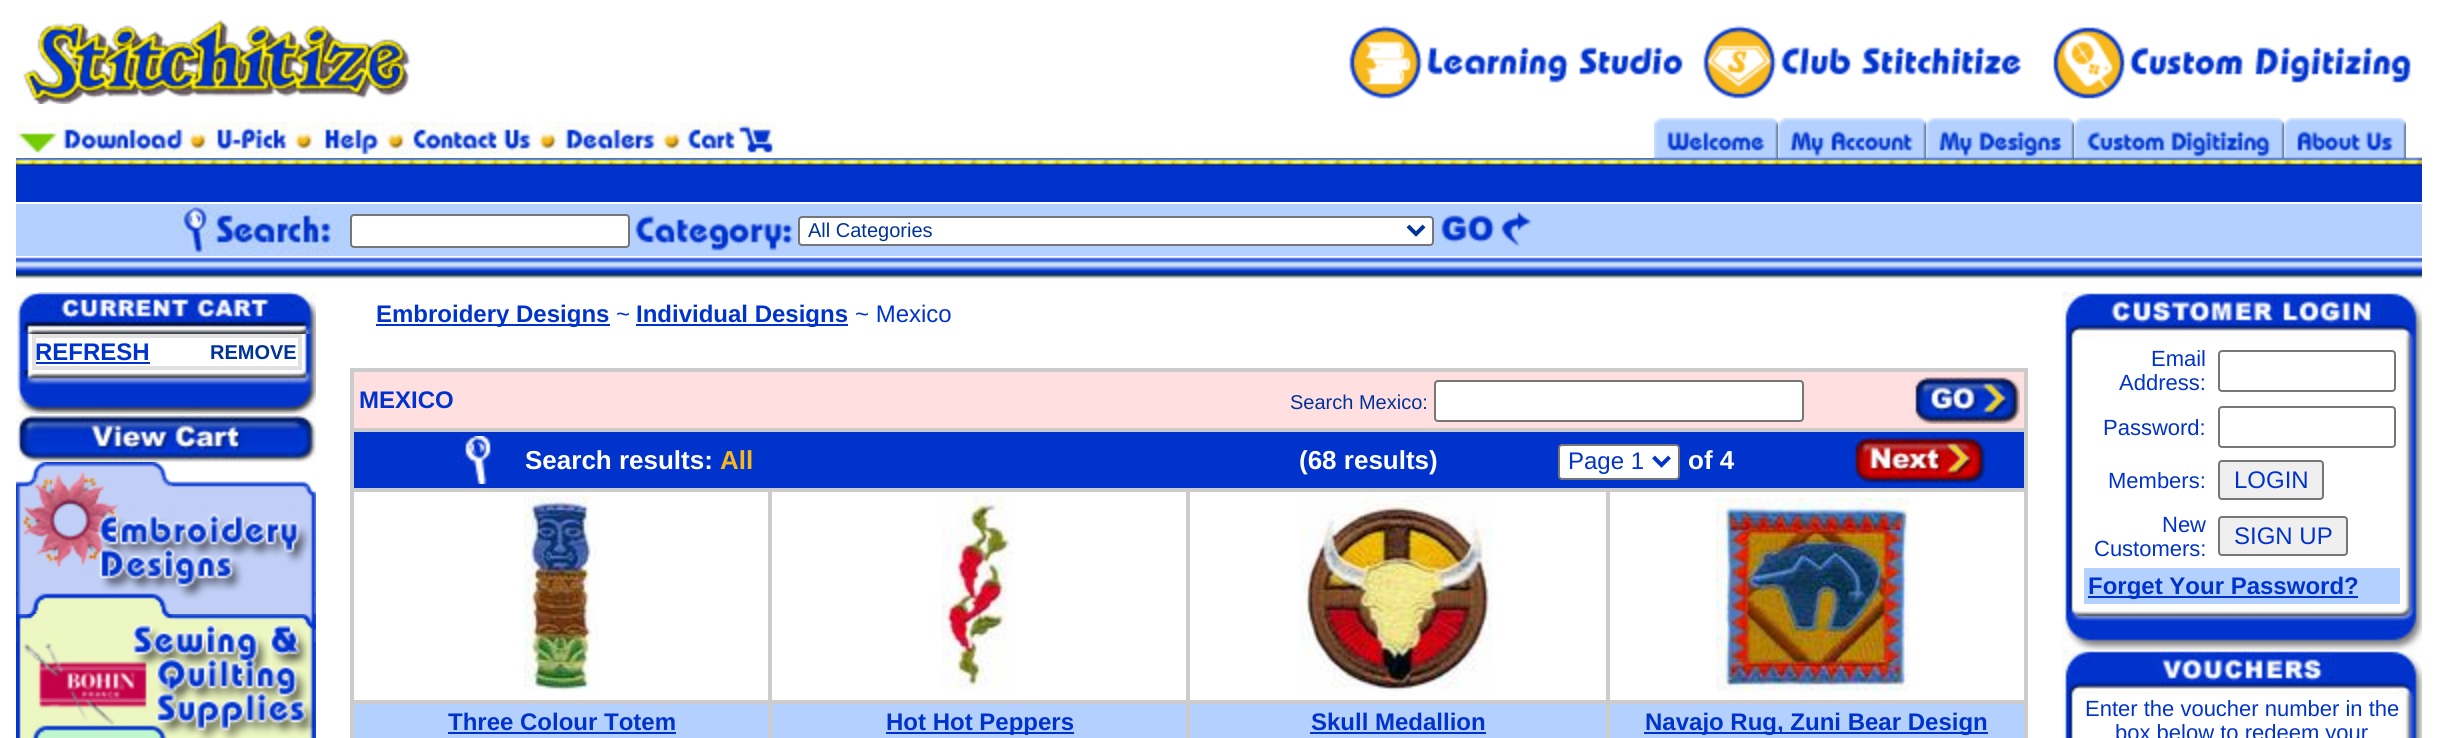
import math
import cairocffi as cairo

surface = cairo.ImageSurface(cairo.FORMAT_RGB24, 2437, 738)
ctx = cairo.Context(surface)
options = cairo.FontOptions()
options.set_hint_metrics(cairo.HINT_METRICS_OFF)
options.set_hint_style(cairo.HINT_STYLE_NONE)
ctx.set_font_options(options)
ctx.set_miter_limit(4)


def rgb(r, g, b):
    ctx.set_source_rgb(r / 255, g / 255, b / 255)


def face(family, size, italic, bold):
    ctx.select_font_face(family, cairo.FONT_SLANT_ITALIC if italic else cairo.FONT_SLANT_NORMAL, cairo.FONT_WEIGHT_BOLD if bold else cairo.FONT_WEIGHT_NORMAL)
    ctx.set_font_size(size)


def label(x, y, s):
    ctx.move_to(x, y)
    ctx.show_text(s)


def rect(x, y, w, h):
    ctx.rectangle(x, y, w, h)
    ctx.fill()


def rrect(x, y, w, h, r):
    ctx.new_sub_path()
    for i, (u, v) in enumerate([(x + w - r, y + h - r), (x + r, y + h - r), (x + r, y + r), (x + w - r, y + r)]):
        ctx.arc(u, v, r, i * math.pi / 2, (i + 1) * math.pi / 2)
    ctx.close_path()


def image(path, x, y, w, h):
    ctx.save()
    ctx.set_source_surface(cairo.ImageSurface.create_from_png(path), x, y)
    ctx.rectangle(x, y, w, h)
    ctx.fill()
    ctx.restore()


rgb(255, 255, 255)
ctx.paint()
image('image0.png', 23, 19, 388, 85)
image('image1.png', 1349, 25, 334, 74)
image('image2.png', 1703, 25, 320, 74)
image('image3.png', 2053, 27, 358, 72)
image('image4.png', 16, 122, 190, 33)
image('image5.png', 206, 122, 106, 33)
image('image6.png', 312, 122, 92, 33)
image('image7.png', 404, 122, 152, 33)
image('image8.png', 556, 122, 124, 33)
image('image9.png', 680, 122, 97, 33)
image('image10.png', 16, 158, 1638, 8)
image('image11.png', 16, 162, 562, 4)
image('image12.png', 1654, 118, 124, 48)
image('image13.png', 1778, 118, 148, 48)
image('image14.png', 1926, 118, 148, 48)
image('image15.png', 2074, 118, 210, 48)
image('image16.png', 2284, 118, 122, 48)
image('image17.png', 2406, 157, 16, 9)
rgb(0, 51, 204)
rect(16, 166, 2406, 36)
rgb(179, 208, 255)
rect(16, 204, 2406, 52)
image('image18.png', 177, 206, 161, 48)
rgb(255, 255, 255)
rrect(351, 215, 278, 32, 3)
ctx.fill_preserve()
rgb(118, 118, 118)
ctx.stroke()
image('image19.png', 635, 215, 158, 36)
rgb(255, 255, 255)
rrect(799, 217, 634, 28, 3)
ctx.fill_preserve()
rgb(118, 118, 118)
ctx.stroke()
ctx.new_path()
ctx.move_to(1408, 226)
ctx.line_to(1416, 234)
ctx.line_to(1424, 226)
rgb(0, 51, 153)
ctx.set_line_width(4)
ctx.stroke()
face('Liberation Sans', 20, 0, 0)
label(808, 237, 'All Categories')
image('image20.png', 1441, 211, 91, 36)
image('image21.png', 16, 257, 2406, 23)
image('image22.png', 16, 292, 300, 42)
image('image23.png', 16, 334, 300, 36)
ctx.rectangle(33, 335, 268, 34)
rgb(225, 225, 225)
ctx.set_line_width(2)
ctx.stroke()
ctx.rectangle(35, 337, 264, 30)
ctx.stroke()
face('Liberation Sans', 24, 0, 1)
rgb(0, 51, 204)
label(35, 360, 'REFRESH')
rect(36, 362, 114, 2)
face('Liberation Sans', 20, 0, 1)
rgb(0, 51, 153)
label(210, 359, 'REMOVE')
image('image24.png', 16, 370, 300, 44)
image('image25.png', 16, 414, 300, 48)
image('image26.png', 16, 462, 300, 152)
image('image27.png', 16, 614, 300, 124)
rgb(0, 51, 204)
rect(376, 324, 234, 2)
face('Liberation Sans', 24, 0, 1)
label(376, 322, 'Embroidery Designs')
face('Liberation Sans', 24, 0, 0)
label(616, 322, '~')
rect(636, 324, 212, 2)
face('Liberation Sans', 24, 0, 1)
label(636, 322, 'Individual Designs')
face('Liberation Sans', 24, 0, 0)
label(855, 322, '~ Mexico')
ctx.rectangle(351, 369, 1676, 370)
rgb(204, 204, 204)
ctx.stroke()
rgb(255, 223, 223)
ctx.rectangle(353, 371, 1672, 58)
ctx.fill_preserve()
rgb(204, 204, 204)
ctx.stroke()
face('Liberation Sans', 24, 0, 1)
rgb(0, 51, 204)
label(359, 408, 'MEXICO')
face('Liberation Sans', 20, 0, 0)
rgb(0, 51, 153)
label(1290, 409, 'Search Mexico:')
rgb(255, 255, 255)
rrect(1435, 381, 368, 40, 3)
ctx.fill_preserve()
rgb(118, 118, 118)
ctx.stroke()
image('image28.png', 1910, 376, 110, 48)
rgb(0, 51, 204)
ctx.rectangle(353, 431, 1672, 58)
ctx.fill_preserve()
rgb(204, 204, 204)
ctx.stroke()
image('image29.png', 458, 436, 33, 48)
face('Liberation Sans', 26, 0, 1)
rgb(255, 255, 255)
label(525, 469, 'Search results:')
rgb(246, 184, 29)
label(720, 469, 'All')
rgb(255, 255, 255)
label(1299, 469, '(68 results)')
rrect(1559, 445, 120, 34, 3)
ctx.fill_preserve()
rgb(118, 118, 118)
ctx.stroke()
ctx.new_path()
ctx.move_to(1653.5, 457)
ctx.line_to(1661.5, 465)
ctx.line_to(1669.5, 457)
rgb(0, 51, 204)
ctx.set_line_width(4)
ctx.stroke()
face('Liberation Sans', 24, 0, 0)
label(1568, 469, 'Page 1')
face('Liberation Sans', 26, 0, 1)
rgb(255, 255, 255)
label(1688, 469, 'of 4')
image('image30.png', 1854, 436, 132, 48)
ctx.rectangle(353, 491, 416, 210)
rgb(204, 204, 204)
ctx.set_line_width(2)
ctx.stroke()
image('image31.png', 524, 496, 74, 195)
ctx.rectangle(771, 491, 416, 210)
ctx.stroke()
image('image32.png', 942, 496, 72, 194)
ctx.rectangle(1189, 491, 418, 210)
ctx.stroke()
image('image33.png', 1300, 496, 193, 200)
ctx.rectangle(1609, 491, 416, 210)
ctx.stroke()
image('image34.png', 1716, 498, 194, 194)
rgb(180, 208, 255)
rect(354, 704, 1670, 34)
ctx.rectangle(353, 703, 416, 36)
rgb(204, 204, 204)
ctx.stroke()
face('Liberation Sans', 24, 0, 1)
rgb(0, 51, 204)
label(448, 730, 'Three Colour Totem')
rect(448, 732, 228, 2)
ctx.rectangle(771, 703, 416, 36)
rgb(204, 204, 204)
ctx.stroke()
rgb(0, 51, 204)
rect(886, 732, 188, 2)
label(886, 730, 'Hot Hot Peppers')
ctx.rectangle(1189, 703, 418, 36)
rgb(204, 204, 204)
ctx.stroke()
rgb(0, 51, 204)
label(1311, 730, 'Skull Medallion')
rect(1310, 732, 176, 2)
ctx.rectangle(1609, 703, 416, 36)
rgb(204, 204, 204)
ctx.stroke()
rgb(0, 51, 204)
rect(1644, 732, 344, 2)
label(1645, 730, 'Navajo Rug, Zuni Bear Design')
image('image35.png', 2062, 292, 360, 46)
image('image36.png', 2062, 338, 360, 270)
face('Liberation Sans', 22, 0, 0)
label(2151, 366, 'Email')
label(2119, 390, 'Address:')
rrect(2219, 351, 176, 40, 3)
rgb(118, 118, 118)
ctx.stroke()
rgb(0, 51, 204)
label(2103, 435, 'Password:')
rrect(2219, 407, 176, 40, 3)
rgb(118, 118, 118)
ctx.stroke()
rgb(0, 51, 204)
label(2108, 488, 'Members:')
rgb(239, 239, 239)
rrect(2219, 461, 104, 38, 3)
ctx.fill_preserve()
rgb(118, 118, 118)
ctx.stroke()
face('Liberation Sans', 24, 0, 0)
rgb(0, 51, 204)
label(2234, 488, 'LOGIN')
face('Liberation Sans', 22, 0, 0)
label(2162, 532, 'New')
label(2094, 556, 'Customers:')
rgb(239, 239, 239)
rrect(2219, 517, 128, 38, 3)
ctx.fill_preserve()
rgb(118, 118, 118)
ctx.stroke()
face('Liberation Sans', 24, 0, 0)
rgb(0, 51, 204)
label(2234, 544, 'SIGN UP')
rgb(180, 208, 255)
rect(2084, 568, 316, 36)
rgb(0, 51, 204)
rect(2088, 596, 270, 2)
face('Liberation Sans', 24, 0, 1)
label(2088, 594, 'Forget Your Password?')
image('image37.png', 2062, 608, 360, 42)
image('image38.png', 2062, 650, 360, 46)
image('image39.png', 2062, 696, 360, 42)
face('Liberation Sans', 22, 0, 0)
label(2085, 716, 'Enter the voucher number in the')
label(2115, 740, 'box below to redeem your')
surface.write_to_png('render.png')
